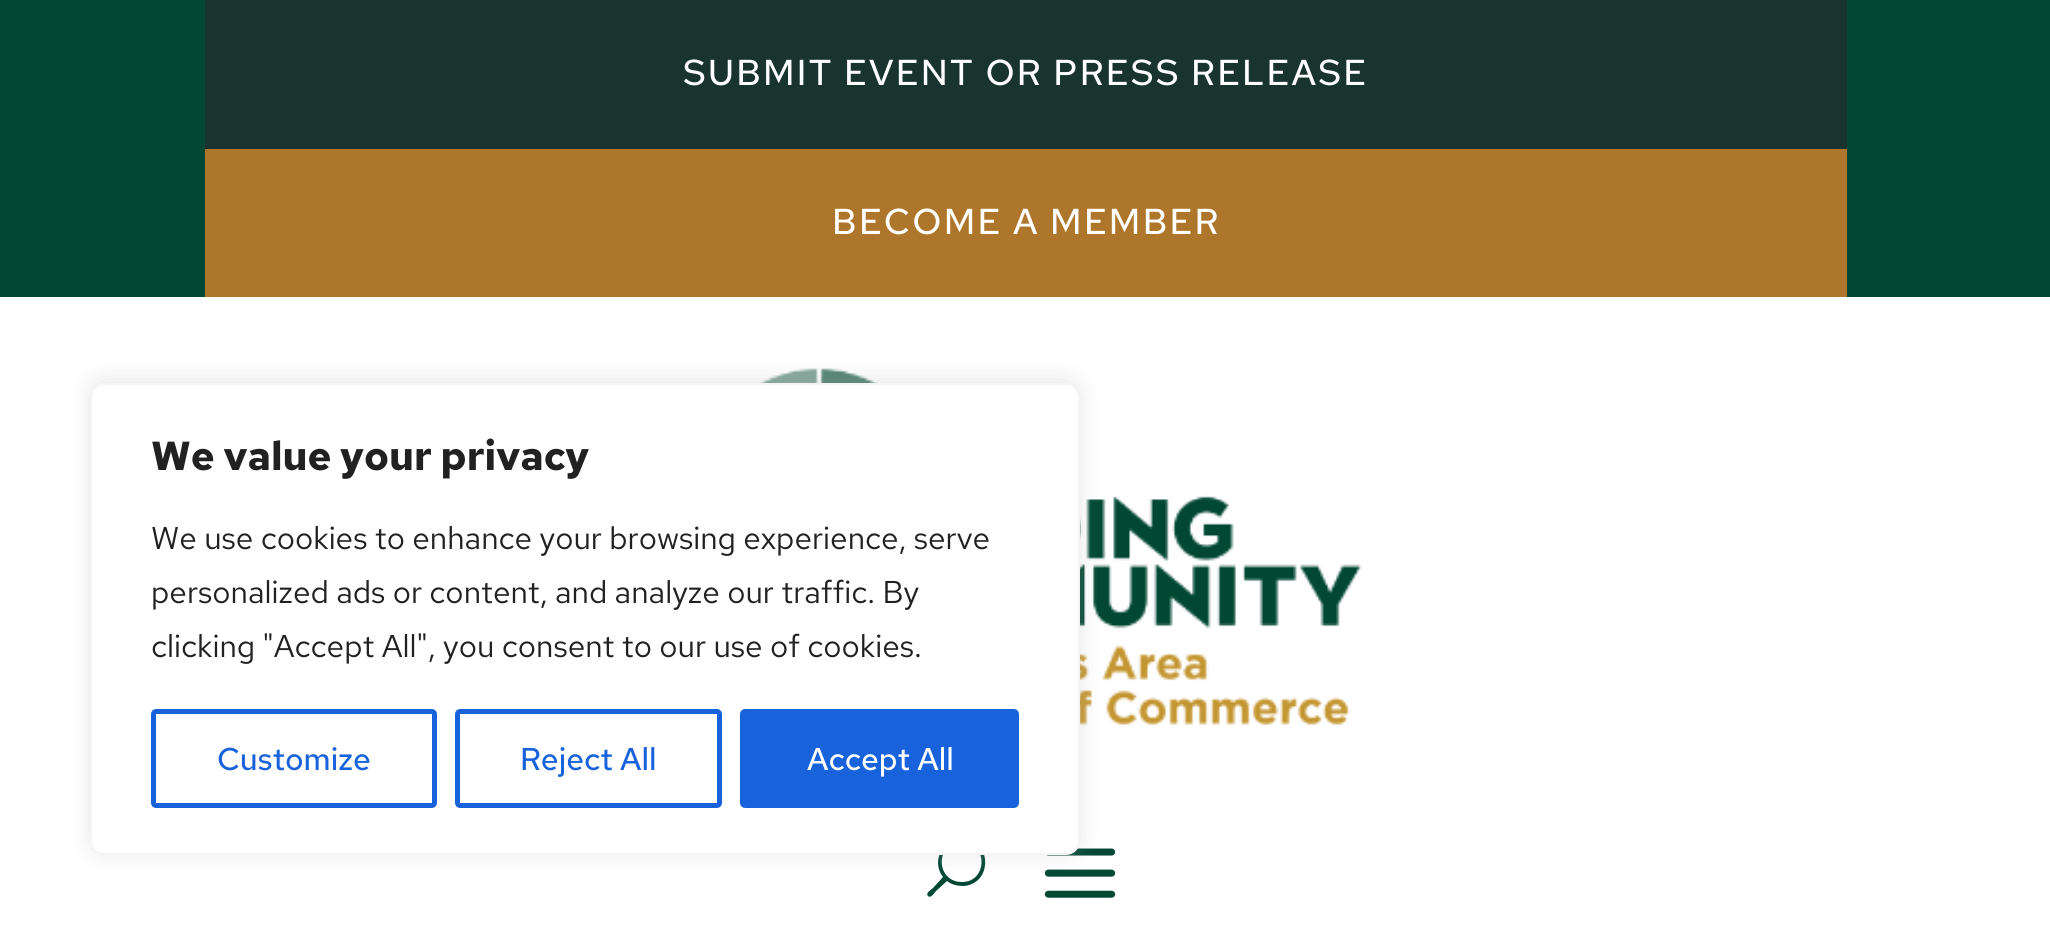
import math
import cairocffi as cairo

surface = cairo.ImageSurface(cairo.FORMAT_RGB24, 2050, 943)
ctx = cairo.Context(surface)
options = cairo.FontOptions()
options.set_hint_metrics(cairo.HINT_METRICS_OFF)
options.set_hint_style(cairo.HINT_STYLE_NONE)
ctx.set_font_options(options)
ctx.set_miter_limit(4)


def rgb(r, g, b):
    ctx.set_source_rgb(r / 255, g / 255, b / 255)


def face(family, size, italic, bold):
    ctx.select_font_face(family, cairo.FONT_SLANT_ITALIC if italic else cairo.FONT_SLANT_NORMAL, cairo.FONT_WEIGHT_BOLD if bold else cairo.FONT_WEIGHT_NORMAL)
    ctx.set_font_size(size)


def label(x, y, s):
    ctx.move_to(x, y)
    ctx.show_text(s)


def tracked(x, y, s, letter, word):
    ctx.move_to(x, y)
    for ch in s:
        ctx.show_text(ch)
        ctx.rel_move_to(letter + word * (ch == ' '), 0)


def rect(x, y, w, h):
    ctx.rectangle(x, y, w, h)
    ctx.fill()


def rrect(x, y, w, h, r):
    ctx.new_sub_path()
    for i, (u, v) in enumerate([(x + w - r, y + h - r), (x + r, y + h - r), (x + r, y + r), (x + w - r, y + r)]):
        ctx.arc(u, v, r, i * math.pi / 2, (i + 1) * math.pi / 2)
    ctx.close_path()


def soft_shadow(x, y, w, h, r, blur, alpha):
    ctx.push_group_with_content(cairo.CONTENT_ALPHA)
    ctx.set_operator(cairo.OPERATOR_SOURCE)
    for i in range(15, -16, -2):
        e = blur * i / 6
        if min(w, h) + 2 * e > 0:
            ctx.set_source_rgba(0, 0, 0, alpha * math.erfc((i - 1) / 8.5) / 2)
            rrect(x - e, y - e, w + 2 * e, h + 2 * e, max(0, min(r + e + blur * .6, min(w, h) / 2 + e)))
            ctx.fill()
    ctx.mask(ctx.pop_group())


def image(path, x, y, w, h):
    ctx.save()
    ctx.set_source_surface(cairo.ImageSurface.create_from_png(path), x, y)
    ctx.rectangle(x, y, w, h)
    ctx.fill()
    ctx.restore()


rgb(255, 255, 255)
ctx.paint()
rgb(3, 72, 53)
rect(0, 0, 2050, 297)
rgb(25, 51, 47)
rect(205, 0, 1642, 149)
face('Red Hat Text Medium', 36, 0, 0)
rgb(255, 255, 255)
tracked(683, 85, 'SUBMIT EVENT OR PRESS RELEASE', 2.25, 0)
rgb(174, 118, 42)
rect(205, 149, 1642, 148)
rgb(255, 255, 255)
tracked(832, 234, 'BECOME A MEMBER', 2.25, 0)
image('image0.png', 760, 368, 602, 358)
rgb(3, 72, 53)
ctx.new_path()
ctx.move_to(962, 838)
ctx.curve_to(942, 838, 931, 862, 943, 877)
ctx.line_to(933, 888)
ctx.curve_to(932, 889, 925, 893, 928, 896)
ctx.curve_to(931, 899, 935, 892, 936, 891)
ctx.line_to(947, 881)
ctx.curve_to(952, 885, 958, 886, 964, 886)
ctx.curve_to(994, 883, 991, 838, 962, 838)
ctx.close_path()
ctx.move_to(962, 882)
ctx.curve_to(935, 882, 935, 842, 962, 842)
ctx.curve_to(988, 842, 988, 882, 962, 882)
ctx.close_path()
ctx.fill()
image('image1.png', 1044, 848, 72, 50)
rgb(172, 171, 171)
soft_shadow(90, 380, 990, 473, 14, 11, 0.3)
rgb(255, 255, 255)
rrect(91, 384, 988, 470, 13)
ctx.fill_preserve()
rgb(244, 244, 244)
ctx.stroke()
face('Red Hat Text', 40.5, 0, 1)
rgb(33, 33, 33)
label(151, 470, 'We value your privacy')
face('Red Hat Text', 31.5, 0, 0)
label(151, 549, 'We use cookies to enhance your browsing experience, serve')
label(151, 603, 'personalized ads or content, and analyze our traffic. By')
label(151, 657, 'clicking "Accept All", you consent to our use of cookies.')
rrect(153.5, 711.5, 281, 94, 2.5)
rgb(24, 99, 220)
ctx.set_line_width(5)
ctx.stroke()
face('Red Hat Text Medium', 31.5, 0, 0)
label(217, 770, 'Customize')
rrect(457.5, 711.5, 262, 94, 2.5)
ctx.stroke()
label(520, 770, 'Reject All')
rrect(742.5, 711.5, 274, 94, 2.5)
ctx.fill_preserve()
ctx.stroke()
rgb(255, 255, 255)
label(807, 770, 'Accept All')
surface.write_to_png('render.png')
